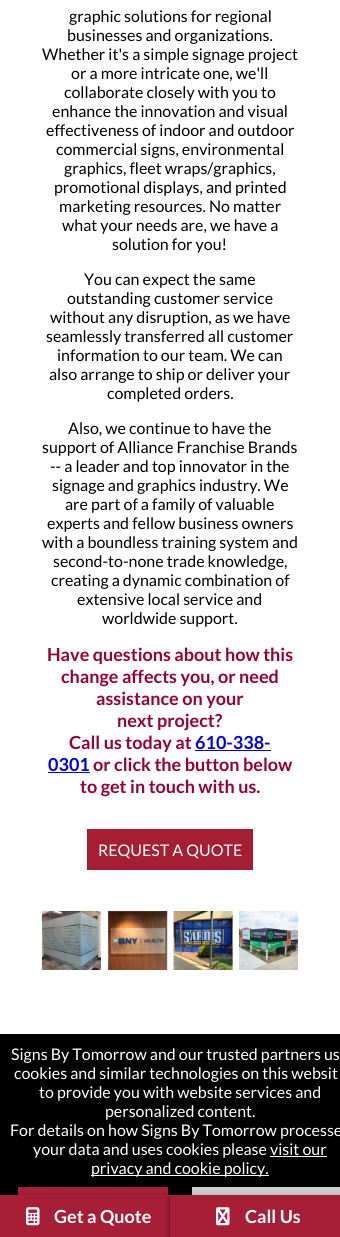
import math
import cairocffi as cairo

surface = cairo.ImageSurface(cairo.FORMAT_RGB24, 340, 1237)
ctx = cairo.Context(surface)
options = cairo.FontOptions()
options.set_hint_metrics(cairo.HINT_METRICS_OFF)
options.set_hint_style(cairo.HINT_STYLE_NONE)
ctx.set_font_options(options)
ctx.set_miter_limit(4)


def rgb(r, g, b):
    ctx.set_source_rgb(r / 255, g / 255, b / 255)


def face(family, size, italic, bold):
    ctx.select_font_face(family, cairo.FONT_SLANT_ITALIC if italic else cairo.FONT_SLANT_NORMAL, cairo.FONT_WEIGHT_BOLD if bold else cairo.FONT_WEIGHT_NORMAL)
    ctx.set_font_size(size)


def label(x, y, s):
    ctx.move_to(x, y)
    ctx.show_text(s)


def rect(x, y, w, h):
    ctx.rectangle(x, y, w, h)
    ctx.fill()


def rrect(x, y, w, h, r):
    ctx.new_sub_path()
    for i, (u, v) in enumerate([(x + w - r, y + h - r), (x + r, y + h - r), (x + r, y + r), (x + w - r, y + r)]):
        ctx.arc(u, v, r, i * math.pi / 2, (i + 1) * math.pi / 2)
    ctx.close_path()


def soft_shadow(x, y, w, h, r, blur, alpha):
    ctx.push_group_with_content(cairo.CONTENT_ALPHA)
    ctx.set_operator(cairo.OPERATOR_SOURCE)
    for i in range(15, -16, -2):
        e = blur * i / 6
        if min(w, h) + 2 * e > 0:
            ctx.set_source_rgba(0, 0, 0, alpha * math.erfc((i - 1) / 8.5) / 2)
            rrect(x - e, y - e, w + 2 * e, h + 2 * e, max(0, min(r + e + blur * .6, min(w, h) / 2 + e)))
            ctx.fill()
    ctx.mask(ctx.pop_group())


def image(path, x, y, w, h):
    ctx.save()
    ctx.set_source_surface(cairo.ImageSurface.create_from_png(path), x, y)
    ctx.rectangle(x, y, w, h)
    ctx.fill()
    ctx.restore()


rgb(255, 255, 255)
ctx.paint()
face('Lato', 16, 0, 0)
rgb(0, 0, 0)
label(69, 22, 'graphic solutions for regional')
label(67, 41, 'businesses and organizations.')
label(42, 60, 'Whether it\'s a simple signage project')
label(71, 79, 'or a more intricate one, we\'ll')
label(64, 98, 'collaborate closely with you to')
label(52, 117, 'enhance the innovation and visual')
label(46, 136, 'effectiveness of indoor and outdoor')
label(56, 155, 'commercial signs, environmental')
label(64, 174, 'graphics, fleet wraps/graphics,')
label(54, 193, 'promotional displays, and printed')
label(59, 212, 'marketing resources. No matter')
label(62, 231, 'what your needs are, we have a')
label(112, 250, 'solution for you!')
label(84, 285, 'You can expect the same')
label(67, 304, 'outstanding customer service')
label(50, 323, 'without any disruption, as we have')
label(46, 342, 'seamlessly transferred all customer')
label(57, 361, 'information to our team. We can')
label(49, 380, 'also arrange to ship or deliver your')
label(107, 399, 'completed orders.')
label(68, 434, 'Also, we continue to have the')
label(42, 453, 'support of Alliance Franchise Brands')
label(50, 472, '-- a leader and top innovator in the')
label(52, 491, 'signage and graphics industry. We')
label(65, 510, 'are part of a family of valuable')
label(47, 529, 'experts and fellow business owners')
label(42, 548, 'with a boundless training system and')
label(53, 567, 'second-to-none trade knowledge,')
label(51, 586, 'creating a dynamic combination of')
label(77, 605, 'extensive local service and')
label(102, 624, 'worldwide support.')
face('Lato', 18, 0, 1)
rgb(153, 0, 51)
label(47, 661, 'Have questions about how this')
label(61, 683, 'change affects you, or need')
label(96, 705, 'assistance on your')
label(117, 727, 'next project?')
label(69, 749, 'Call us today at')
rgb(0, 0, 238)
label(195, 749, '610-338-')
rect(195, 750, 76, 1)
label(48, 771, '0301')
rect(48, 772, 42, 1)
rgb(153, 0, 51)
label(93, 771, 'or click the button below')
label(80, 793, 'to get in touch with us.')
rgb(165, 30, 52)
rect(87, 829, 166, 41)
face('Lato', 16, 0, 0)
rgb(255, 255, 255)
label(98, 856, 'REQUEST A QUOTE')
image('image0.png', 42, 911, 256, 59)
rgb(0, 0, 0)
rect(0, 1034, 340, 161)
rgb(255, 255, 255)
label(11, 1060, 'Signs By Tomorrow and our trusted partners us')
label(14, 1079, 'cookies and similar technologies on this websit')
label(39, 1098, 'to provide you with website services and')
label(105, 1117, 'personalized content.')
label(10, 1136, 'For details on how Signs By Tomorrow processe')
label(33, 1155, 'your data and uses cookies please visit our')
rect(91, 1175, 178, 1)
label(91, 1174, 'privacy and cookie policy.')
rect(270, 1156, 57, 1)
rgb(167, 31, 55)
rect(18, 1187, 150, 8)
rgb(204, 204, 204)
rect(192, 1187, 148, 8)
rgb(0, 0, 0)
soft_shadow(0, 1198, 170, 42, 0, 3, 0.5)
rgb(167, 31, 55)
rect(0, 1195, 170, 42)
image('image1.png', 26, 1207, 14, 19)
face('Lato', 18, 0, 1)
rgb(255, 255, 255)
label(54, 1223, 'Get a Quote')
rgb(0, 0, 0)
soft_shadow(170, 1198, 170, 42, 0, 3, 0.5)
rgb(167, 31, 55)
rect(170, 1195, 170, 42)
image('image2.png', 216, 1207, 14, 19)
rgb(255, 255, 255)
label(245, 1223, 'Call Us')
surface.write_to_png('render.png')
